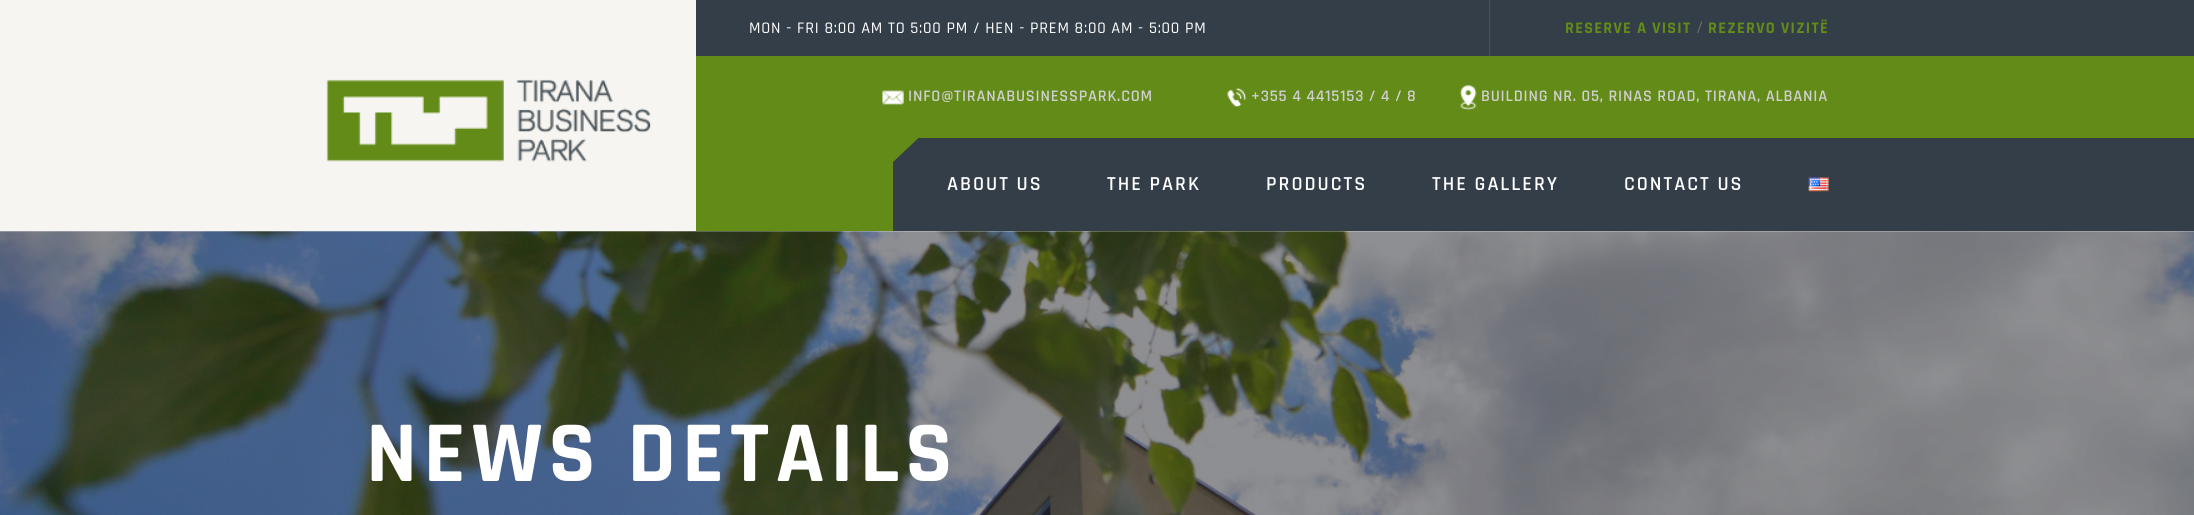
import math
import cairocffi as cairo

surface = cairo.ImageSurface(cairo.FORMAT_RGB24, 2194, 515)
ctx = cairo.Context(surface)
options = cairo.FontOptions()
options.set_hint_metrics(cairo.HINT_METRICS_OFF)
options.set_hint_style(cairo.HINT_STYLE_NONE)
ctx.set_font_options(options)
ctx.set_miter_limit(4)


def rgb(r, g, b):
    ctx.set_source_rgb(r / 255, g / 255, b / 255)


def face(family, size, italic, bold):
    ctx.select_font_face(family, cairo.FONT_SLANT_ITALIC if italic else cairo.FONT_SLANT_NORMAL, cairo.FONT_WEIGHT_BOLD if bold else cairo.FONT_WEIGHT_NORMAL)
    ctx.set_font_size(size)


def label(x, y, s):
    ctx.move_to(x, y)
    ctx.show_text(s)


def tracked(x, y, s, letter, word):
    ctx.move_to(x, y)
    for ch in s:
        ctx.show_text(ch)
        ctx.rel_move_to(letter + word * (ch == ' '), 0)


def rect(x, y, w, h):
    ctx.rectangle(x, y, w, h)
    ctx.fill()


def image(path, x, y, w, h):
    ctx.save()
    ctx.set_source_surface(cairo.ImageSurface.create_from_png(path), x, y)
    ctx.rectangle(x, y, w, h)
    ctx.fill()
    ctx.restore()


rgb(255, 255, 255)
ctx.paint()
rgb(99, 139, 24)
rect(696, 56, 1498, 175)
rgb(51, 62, 72)
rect(696, 0, 1498, 56)
face('Rajdhani Medium', 16.25, 0, 0)
rgb(255, 255, 255)
tracked(749, 33, 'MON - FRI 8:00 AM TO 5:00 PM / HEN - PREM 8:00 AM - 5:00 PM', 0.8, 0)
rgb(71, 81, 90)
rect(1489, 0, 1, 56)
face('Rajdhani', 16.25, 0, 1)
rgb(99, 139, 24)
tracked(1565, 33, 'RESERVE A VISIT', 1.25, 0)
face('Rajdhani', 18, 0, 0)
rgb(120, 120, 120)
label(1696, 33, '/')
face('Rajdhani', 16.25, 0, 1)
rgb(99, 139, 24)
tracked(1708, 33, 'REZERVO VIZITË', 1.25, 0)
rgb(247, 245, 241)
rect(0, 0, 696, 231)
image('image0.png', 326, 79, 325, 83)
image('image1.png', 882, 90, 22, 15)
face('Rajdhani SemiBold', 16.25, 0, 0)
rgb(207, 207, 207)
tracked(908, 101, 'INFO@TIRANABUSINESSPARK.COM', 0.8, 0)
image('image2.png', 1227, 87, 20, 20)
tracked(1251, 101, '+355 4 4415153 / 4 / 8', 0.8, 0)
image('image3.png', 1460, 85, 17, 25)
tracked(1481, 101, 'BUILDING NR. 05, RINAS ROAD, TIRANA, ALBANIA', 0.8, 0)
rgb(51, 62, 72)
rect(893, 138, 1301, 93)
rgb(99, 139, 24)
ctx.new_path()
ctx.move_to(892.5, 137.5)
ctx.line_to(919, 137.5)
ctx.line_to(892.5, 162.5)
ctx.close_path()
ctx.fill()
face('Rajdhani SemiBold', 20, 0, 0)
rgb(255, 255, 255)
tracked(947, 190, 'ABOUT US', 2, 0)
tracked(1107, 190, 'THE PARK', 2, 0)
tracked(1266, 190, 'PRODUCTS', 2, 0)
tracked(1432, 190, 'THE GALLERY', 2, 0)
tracked(1624, 190, 'CONTACT US', 2, 0)
image('image4.png', 1808, 177, 21, 15)
image('image5.png', 0, 231, 2194, 284)
face('Rajdhani', 87.5, 0, 1)
tracked(366, 481, 'NEWS DETAILS', 6.25, 0)
surface.write_to_png('render.png')
